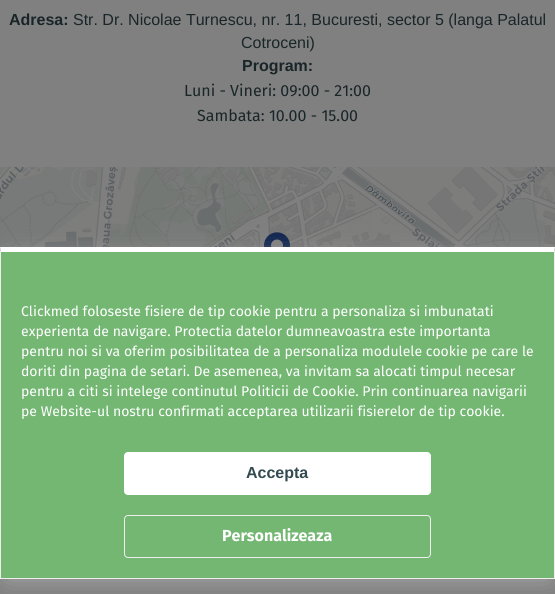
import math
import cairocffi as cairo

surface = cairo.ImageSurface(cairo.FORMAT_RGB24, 555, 594)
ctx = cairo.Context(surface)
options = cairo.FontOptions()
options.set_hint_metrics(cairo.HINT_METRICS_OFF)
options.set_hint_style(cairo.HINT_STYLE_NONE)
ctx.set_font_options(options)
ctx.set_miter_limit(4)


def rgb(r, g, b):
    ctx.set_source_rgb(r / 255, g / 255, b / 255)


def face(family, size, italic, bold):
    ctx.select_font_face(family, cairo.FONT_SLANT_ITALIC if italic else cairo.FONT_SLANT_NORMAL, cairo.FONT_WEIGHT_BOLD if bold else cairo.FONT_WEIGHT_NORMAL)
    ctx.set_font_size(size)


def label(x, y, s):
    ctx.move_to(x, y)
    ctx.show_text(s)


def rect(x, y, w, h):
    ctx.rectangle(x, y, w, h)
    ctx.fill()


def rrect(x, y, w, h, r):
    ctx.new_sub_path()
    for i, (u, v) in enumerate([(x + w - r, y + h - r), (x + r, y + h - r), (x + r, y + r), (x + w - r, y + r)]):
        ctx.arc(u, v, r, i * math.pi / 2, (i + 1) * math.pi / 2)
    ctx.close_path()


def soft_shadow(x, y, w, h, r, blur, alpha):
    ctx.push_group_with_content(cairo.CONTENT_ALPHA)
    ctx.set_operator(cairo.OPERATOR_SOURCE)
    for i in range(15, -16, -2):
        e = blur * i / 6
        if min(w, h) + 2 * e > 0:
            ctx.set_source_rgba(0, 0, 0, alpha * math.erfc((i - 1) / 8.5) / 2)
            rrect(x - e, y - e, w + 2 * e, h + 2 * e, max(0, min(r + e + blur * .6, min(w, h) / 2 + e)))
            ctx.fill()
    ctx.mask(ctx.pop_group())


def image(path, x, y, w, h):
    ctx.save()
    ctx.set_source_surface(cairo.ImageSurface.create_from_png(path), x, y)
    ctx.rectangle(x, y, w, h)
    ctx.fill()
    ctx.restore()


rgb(128, 128, 128)
ctx.paint()
face('Liberation Sans', 16, 0, 1)
rgb(25, 37, 40)
label(9, 25, 'Adresa:')
face('Liberation Sans', 16, 0, 0)
label(73, 25, 'Str. Dr. Nicolae Turnescu, nr. 11, Bucuresti, sector 5 (langa Palatul')
label(241, 48, 'Cotroceni)')
face('Liberation Sans', 16, 0, 1)
label(242, 71, 'Program:')
face('Fira Sans', 16, 0, 0)
label(184, 96, 'Luni - Vineri: 09:00 - 21:00')
label(197, 121, 'Sambata: 10.00 - 15.00')
image('image0.png', 0, 167, 98, 85)
image('image1.png', 98, 167, 256, 80)
image('image2.png', 354, 167, 201, 85)
image('image3.png', 263, 232, 27, 15)
rgb(178, 178, 178)
soft_shadow(8, 260, 539, 316, 0, 12.5, 1)
rgb(115, 183, 115)
rect(1, 252, 553, 326)
rgb(255, 255, 255)
ctx.new_path()
ctx.move_to(0, 247)
ctx.line_to(555, 247)
ctx.line_to(554, 252)
ctx.line_to(1, 252)
ctx.close_path()
ctx.fill()
rgb(238, 238, 238)
ctx.new_path()
ctx.move_to(555, 247)
ctx.line_to(555, 579)
ctx.line_to(554, 578)
ctx.line_to(554, 252)
ctx.close_path()
ctx.fill()
rect(0, 578, 555, 1)
ctx.new_path()
ctx.move_to(0, 579)
ctx.line_to(0, 247)
ctx.line_to(1, 252)
ctx.line_to(1, 578)
ctx.close_path()
ctx.fill()
face('Fira Sans', 14, 0, 0)
rgb(255, 255, 255)
label(21, 316, 'Clickmed foloseste fisiere de tip cookie pentru a personaliza si imbunatati')
label(21, 336, 'experienta de navigare. Protectia datelor dumneavoastra este importanta')
label(21, 356, 'pentru noi si va oferim posibilitatea de a personaliza modulele cookie pe care le')
label(21, 376, 'doriti din pagina de setari. De asemenea, va invitam sa alocati timpul necesar')
label(21, 396, 'pentru a citi si intelege continutul Politicii de Cookie. Prin continuarea navigarii')
label(21, 416, 'pe Website-ul nostru confirmati acceptarea utilizarii fisierelor de tip cookie.')
rrect(124, 452, 307, 43, 4)
ctx.fill()
face('Liberation Sans', 16, 0, 1)
rgb(50, 74, 80)
label(246, 478, 'Accepta')
rrect(124.5, 515.5, 306, 42, 3.5)
rgb(238, 238, 238)
ctx.set_line_width(1)
ctx.stroke()
face('Fira Sans', 16, 0, 1)
rgb(255, 255, 255)
label(222, 541, 'Personalizeaza')
surface.write_to_png('render.png')
